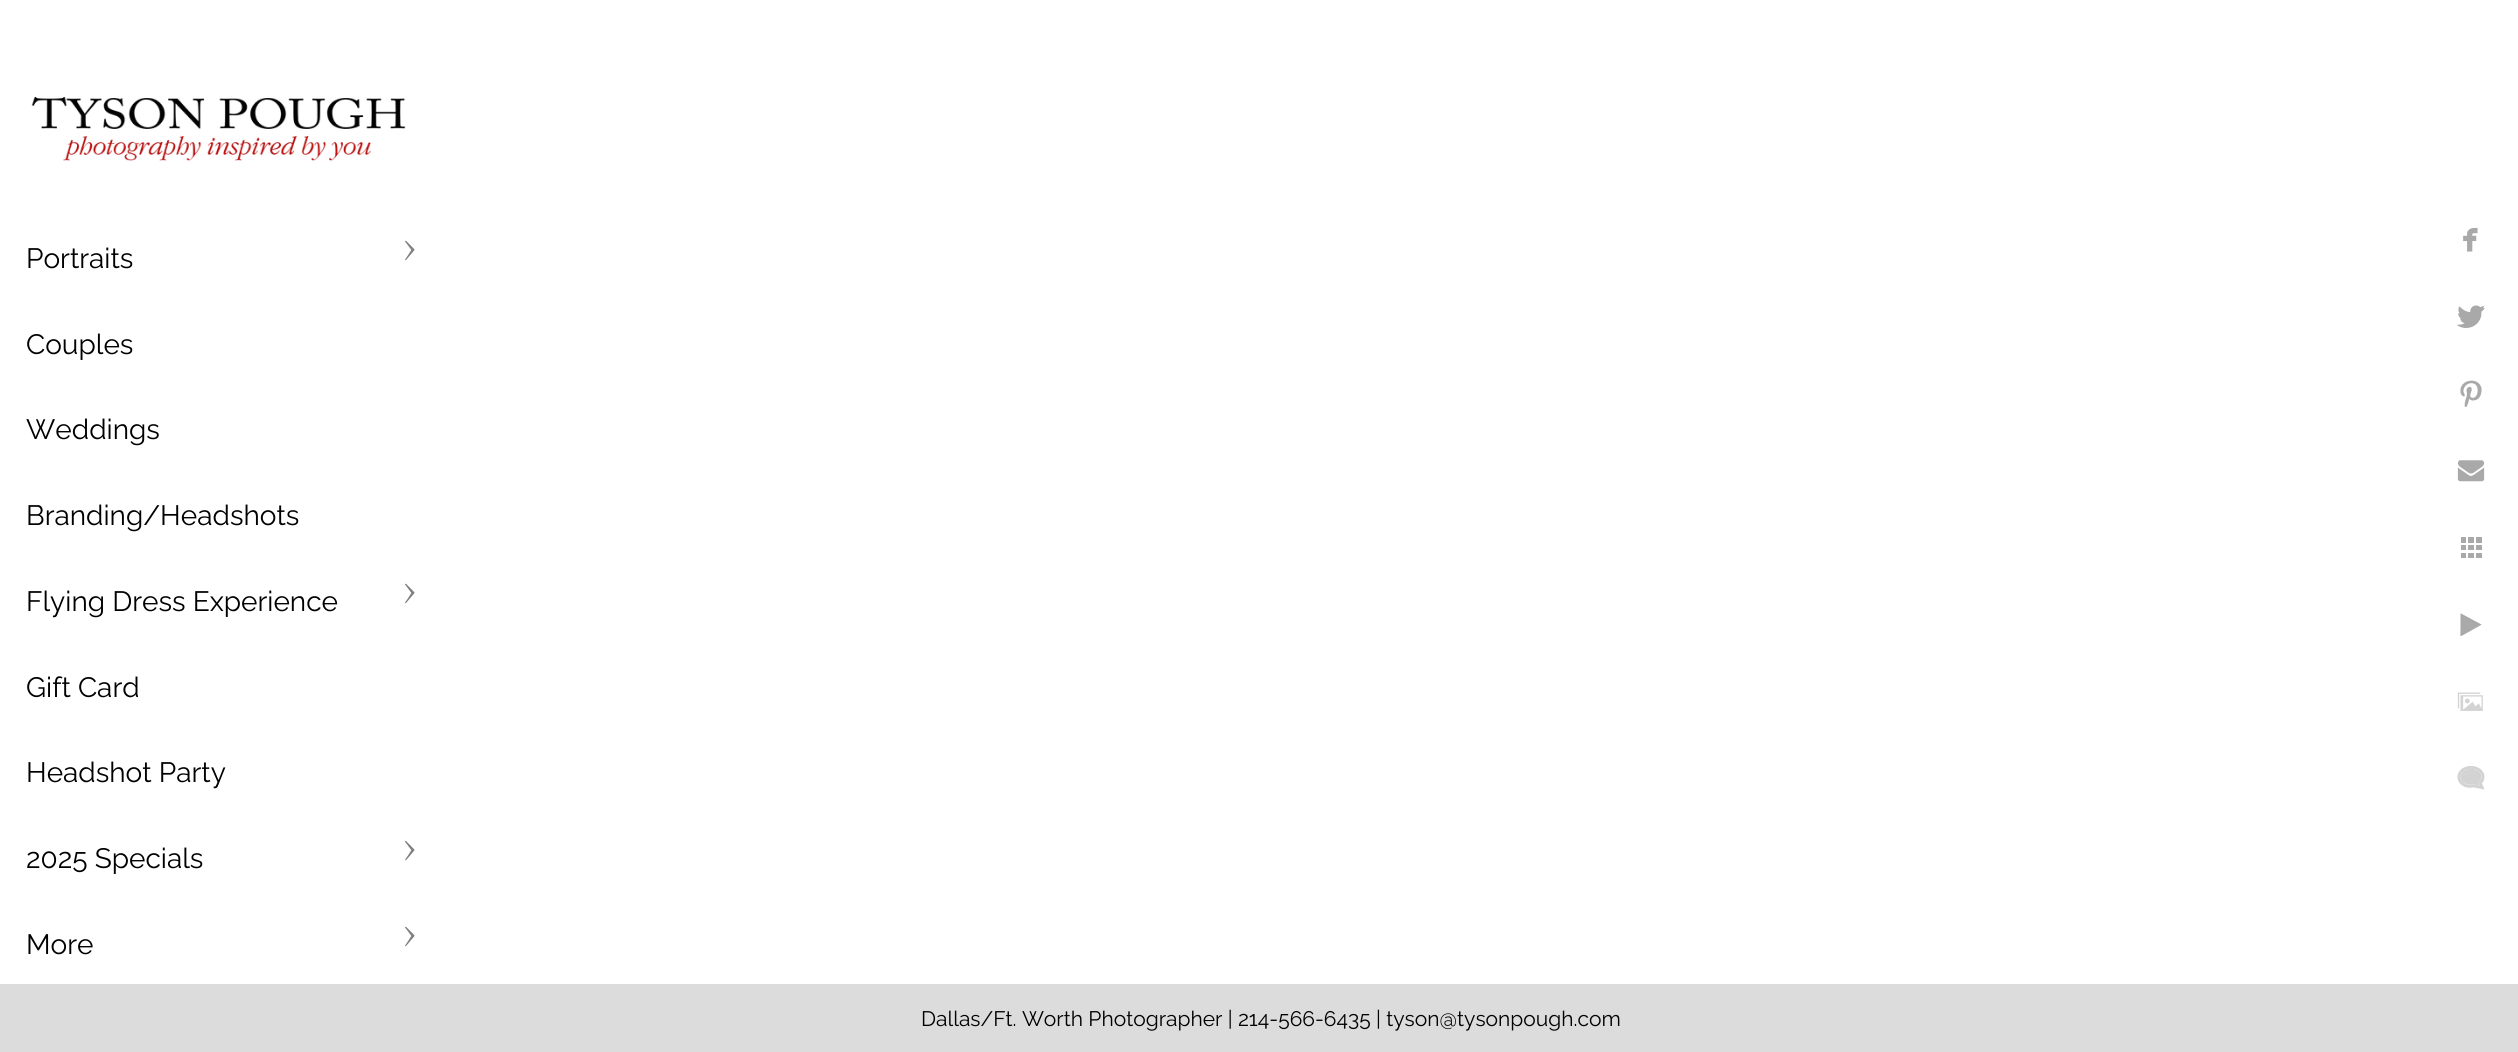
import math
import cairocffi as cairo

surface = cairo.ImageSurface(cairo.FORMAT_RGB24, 2518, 1052)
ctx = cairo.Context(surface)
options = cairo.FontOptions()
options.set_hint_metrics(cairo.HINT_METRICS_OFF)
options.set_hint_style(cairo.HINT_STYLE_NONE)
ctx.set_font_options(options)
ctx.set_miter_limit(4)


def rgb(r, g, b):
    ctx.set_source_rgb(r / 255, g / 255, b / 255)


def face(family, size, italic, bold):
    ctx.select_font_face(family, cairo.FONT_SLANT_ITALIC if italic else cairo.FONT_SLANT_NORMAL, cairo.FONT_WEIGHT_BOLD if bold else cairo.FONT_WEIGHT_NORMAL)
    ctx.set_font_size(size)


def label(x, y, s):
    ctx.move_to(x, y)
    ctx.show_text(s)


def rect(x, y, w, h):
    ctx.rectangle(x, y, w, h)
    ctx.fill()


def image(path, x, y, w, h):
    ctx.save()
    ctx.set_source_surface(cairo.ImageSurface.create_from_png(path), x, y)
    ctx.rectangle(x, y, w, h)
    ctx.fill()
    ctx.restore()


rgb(255, 255, 255)
ctx.paint()
image('image0.png', 31, 96, 375, 65)
face('Raleway Thin', 28, 0, 0)
rgb(0, 0, 0)
label(26, 268, 'Portraits')
image('image1.png', 404, 240, 11, 21)
label(26, 354, 'Couples')
label(26, 439, 'Weddings')
label(26, 525, 'Branding/Headshots')
label(26, 611, 'Flying Dress Experience')
image('image1.png', 404, 583, 11, 21)
label(26, 697, 'Gift Card')
label(26, 782, 'Headshot Party')
label(26, 868, '2025 Specials')
image('image2.png', 404, 840, 11, 21)
label(26, 954, 'More')
image('image1.png', 404, 926, 11, 21)
image('image3.png', 2463, 227, 15, 25)
image('image4.png', 2457, 305, 28, 23)
image('image5.png', 2460, 380, 22, 27)
image('image6.png', 2457, 460, 28, 22)
image('image7.png', 2461, 537, 21, 21)
rgb(169, 169, 169)
ctx.new_path()
ctx.move_to(2481, 625)
ctx.line_to(2465, 634)
ctx.curve_to(2459, 637.5, 2460.5, 637, 2460.5, 628.5)
ctx.line_to(2460.5, 614)
ctx.line_to(2461, 613.5)
ctx.line_to(2481.5, 624.5)
ctx.close_path()
ctx.fill()
image('image8.png', 2457, 692, 26, 19)
image('image9.png', 2457, 766, 28, 24)
rgb(220, 220, 220)
rect(0, 984, 2518, 68)
face('Raleway Thin', 21, 0, 0)
rgb(0, 0, 0)
label(921, 1026, 'Dallas/Ft. Worth Photographer | 214-566-6435 | tyson@tysonpough.com')
surface.write_to_png('render.png')
